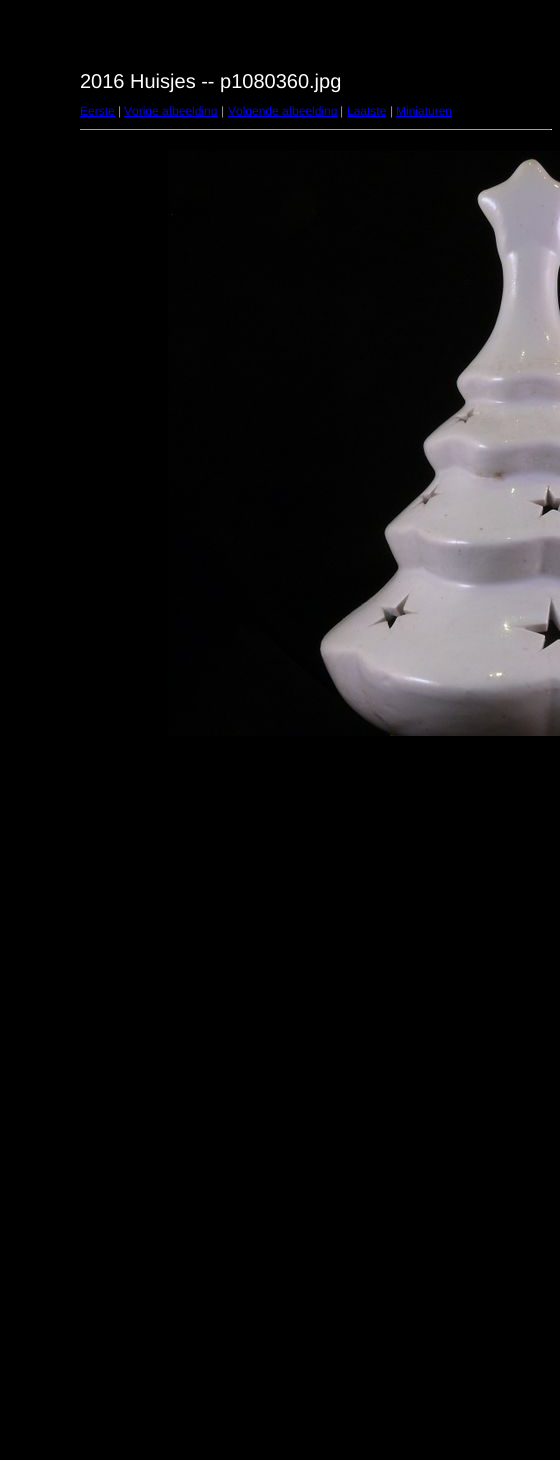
import math
import cairocffi as cairo

surface = cairo.ImageSurface(cairo.FORMAT_RGB24, 560, 1460)
ctx = cairo.Context(surface)
options = cairo.FontOptions()
options.set_hint_metrics(cairo.HINT_METRICS_OFF)
options.set_hint_style(cairo.HINT_STYLE_NONE)
ctx.set_font_options(options)
ctx.set_miter_limit(4)


def rgb(r, g, b):
    ctx.set_source_rgb(r / 255, g / 255, b / 255)


def face(family, size, italic, bold):
    ctx.select_font_face(family, cairo.FONT_SLANT_ITALIC if italic else cairo.FONT_SLANT_NORMAL, cairo.FONT_WEIGHT_BOLD if bold else cairo.FONT_WEIGHT_NORMAL)
    ctx.set_font_size(size)


def label(x, y, s):
    ctx.move_to(x, y)
    ctx.show_text(s)


def rect(x, y, w, h):
    ctx.rectangle(x, y, w, h)
    ctx.fill()


def image(path, x, y, w, h):
    ctx.save()
    ctx.set_source_surface(cairo.ImageSurface.create_from_png(path), x, y)
    ctx.rectangle(x, y, w, h)
    ctx.fill()
    ctx.restore()


rgb(0, 0, 0)
ctx.paint()
face('Liberation Sans', 20, 0, 0)
rgb(255, 255, 255)
label(80, 88, '2016 Huisjes -- p1080360.jpg')
face('Liberation Sans', 12, 0, 0)
rgb(0, 0, 238)
label(80, 115, 'Eerste')
rect(80, 116, 35, 1)
rgb(153, 153, 153)
label(118, 115, '|')
rgb(0, 0, 238)
rect(124, 116, 94, 1)
label(124, 115, 'Vorige afbeelding')
rgb(153, 153, 153)
label(221, 115, '|')
rgb(0, 0, 238)
rect(228, 116, 109, 1)
label(228, 115, 'Volgende afbeelding')
rgb(153, 153, 153)
label(340, 115, '|')
rgb(0, 0, 238)
label(347, 115, 'Laatste')
rect(347, 116, 39, 1)
rgb(153, 153, 153)
label(390, 115, '|')
rgb(0, 0, 238)
label(396, 115, 'Miniaturen')
rect(396, 116, 56, 1)
rgb(159, 159, 159)
rect(80, 129, 472, 1)
rgb(238, 238, 238)
rect(551, 129, 1, 1)
image('image0.png', 168, 151, 392, 585)
surface.write_to_png('render.png')
